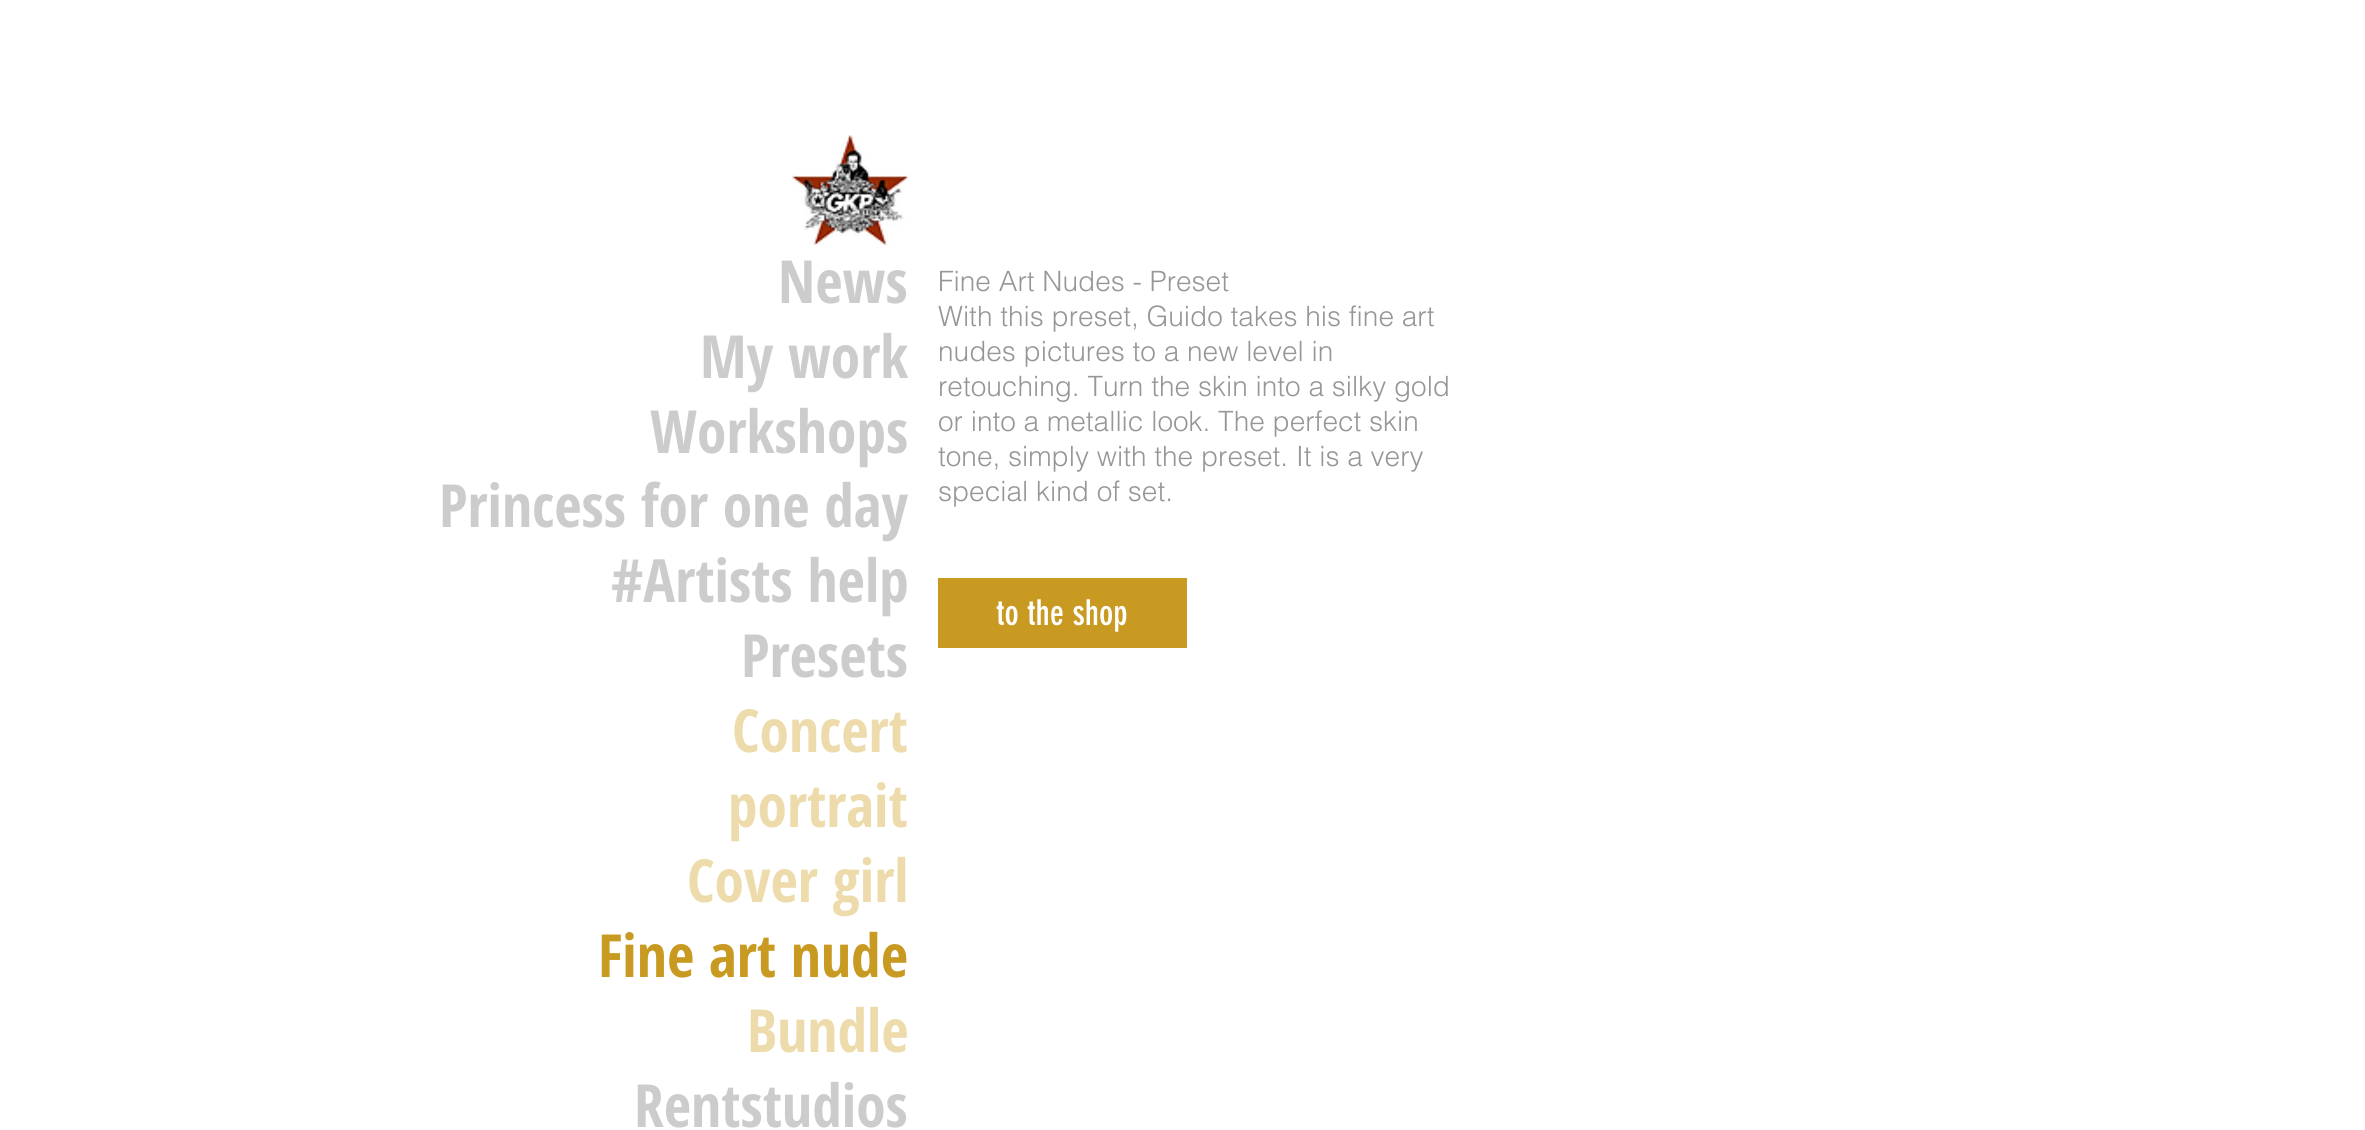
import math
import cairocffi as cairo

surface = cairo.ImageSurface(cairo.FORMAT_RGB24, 2365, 1130)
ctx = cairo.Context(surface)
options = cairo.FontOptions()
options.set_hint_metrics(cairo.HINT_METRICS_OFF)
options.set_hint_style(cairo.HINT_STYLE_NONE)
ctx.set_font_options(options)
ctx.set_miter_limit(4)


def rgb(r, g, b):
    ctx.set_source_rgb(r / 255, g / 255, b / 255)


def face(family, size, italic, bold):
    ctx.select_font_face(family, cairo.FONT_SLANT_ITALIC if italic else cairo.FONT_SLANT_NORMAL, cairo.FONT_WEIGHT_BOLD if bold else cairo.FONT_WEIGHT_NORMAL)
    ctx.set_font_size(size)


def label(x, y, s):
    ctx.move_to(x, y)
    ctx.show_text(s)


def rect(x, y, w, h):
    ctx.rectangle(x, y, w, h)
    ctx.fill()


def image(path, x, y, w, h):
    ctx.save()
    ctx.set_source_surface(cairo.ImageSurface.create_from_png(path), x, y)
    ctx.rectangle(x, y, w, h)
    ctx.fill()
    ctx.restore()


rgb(255, 255, 255)
ctx.paint()
image('image0.png', 792, 135, 116, 110)
face('Open Sans Condensed', 59.5, 0, 1)
rgb(204, 204, 204)
label(778, 303, 'News')
label(700, 378, 'My work')
label(650, 453, 'Workshops')
label(439, 527, 'Princess for one day')
label(611, 602, '#Artists help')
label(741, 677, 'Presets')
rgb(237, 219, 171)
label(732, 752, 'Concert')
label(728, 827, 'portrait')
label(687, 902, 'Cover girl')
rgb(201, 154, 34)
label(598, 977, 'Fine art nude')
rgb(237, 219, 171)
label(747, 1052, 'Bundle')
rgb(204, 204, 204)
label(634, 1127, 'Rentstudios')
face('helvetica Light', 28, 0, 0)
rgb(150, 150, 150)
label(938, 291, 'Fine Art Nudes - Preset')
label(938, 326, 'With this preset, Guido takes his fine art')
label(938, 361, 'nudes pictures to a new level in')
label(938, 396, 'retouching. Turn the skin into a silky gold')
label(938, 431, 'or into a metallic look. The perfect skin')
label(938, 466, 'tone, simply with the preset. It is a very')
label(938, 501, 'special kind of set.')
rgb(201, 154, 34)
rect(938, 578, 249, 70)
face('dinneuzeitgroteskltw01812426', 35, 0, 0)
rgb(255, 255, 255)
label(996, 625, 'to the shop')
surface.write_to_png('render.png')
